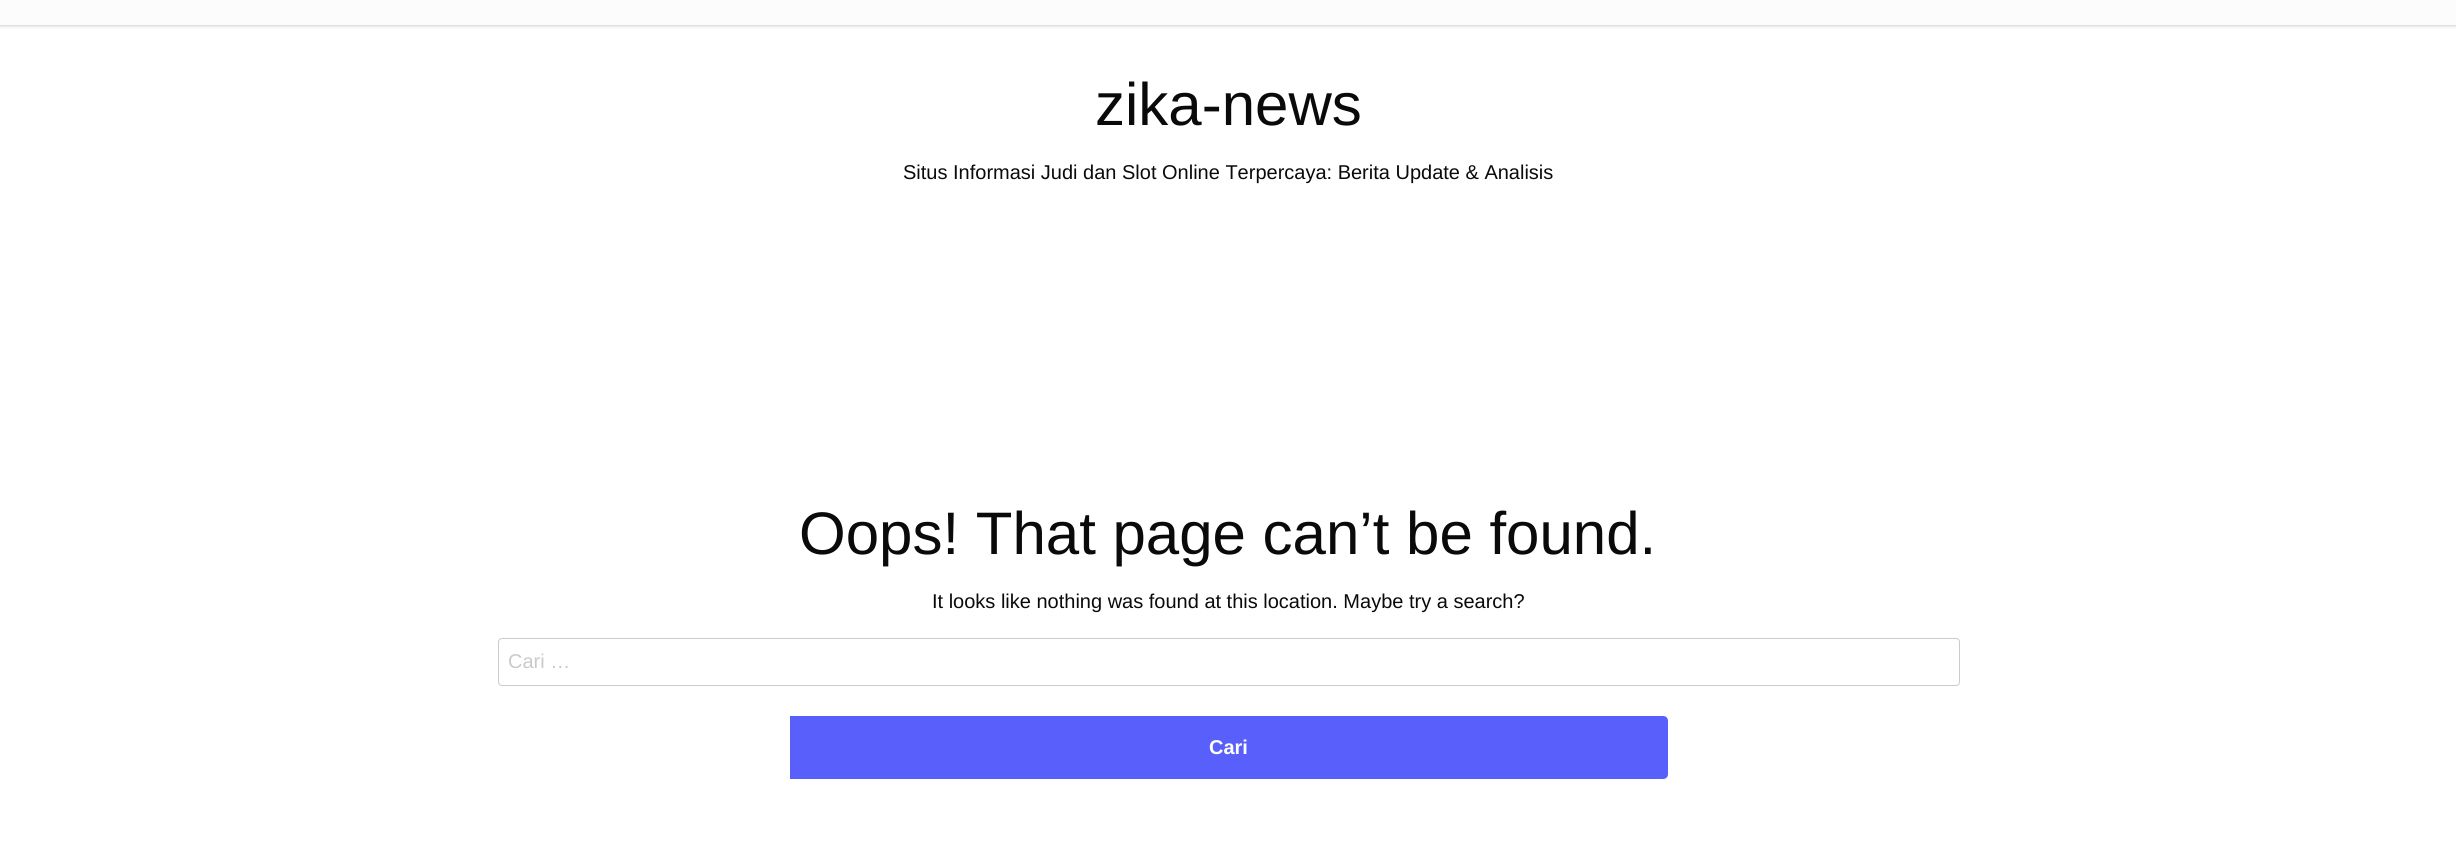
import math
import cairocffi as cairo

surface = cairo.ImageSurface(cairo.FORMAT_RGB24, 2456, 862)
ctx = cairo.Context(surface)
options = cairo.FontOptions()
options.set_hint_metrics(cairo.HINT_METRICS_OFF)
options.set_hint_style(cairo.HINT_STYLE_NONE)
ctx.set_font_options(options)
ctx.set_miter_limit(4)


def rgb(r, g, b):
    ctx.set_source_rgb(r / 255, g / 255, b / 255)


def face(family, size, italic, bold):
    ctx.select_font_face(family, cairo.FONT_SLANT_ITALIC if italic else cairo.FONT_SLANT_NORMAL, cairo.FONT_WEIGHT_BOLD if bold else cairo.FONT_WEIGHT_NORMAL)
    ctx.set_font_size(size)


def label(x, y, s):
    ctx.move_to(x, y)
    ctx.show_text(s)


def rect(x, y, w, h):
    ctx.rectangle(x, y, w, h)
    ctx.fill()


def rrect(x, y, w, h, r):
    ctx.new_sub_path()
    for i, (u, v) in enumerate([(x + w - r, y + h - r), (x + r, y + h - r), (x + r, y + r), (x + w - r, y + r)]):
        ctx.arc(u, v, r, i * math.pi / 2, (i + 1) * math.pi / 2)
    ctx.close_path()


def soft_shadow(x, y, w, h, r, blur, alpha):
    ctx.push_group_with_content(cairo.CONTENT_ALPHA)
    ctx.set_operator(cairo.OPERATOR_SOURCE)
    for i in range(15, -16, -2):
        e = blur * i / 6
        if min(w, h) + 2 * e > 0:
            ctx.set_source_rgba(0, 0, 0, alpha * math.erfc((i - 1) / 8.5) / 2)
            rrect(x - e, y - e, w + 2 * e, h + 2 * e, max(0, min(r + e + blur * .6, min(w, h) / 2 + e)))
            ctx.fill()
    ctx.mask(ctx.pop_group())


rgb(255, 255, 255)
ctx.paint()
rgb(0, 0, 0)
soft_shadow(0, 1, 2456, 25, 0, 3, 0.08)
soft_shadow(0, 1, 2456, 25, 0, 1, 0.13)
rgb(252, 252, 252)
rect(0, 0, 2456, 25)
face('Liberation Sans', 60, 0, 0)
rgb(10, 10, 10)
label(1095, 125, 'zika-news')
face('Liberation Sans', 20, 0, 0)
label(903, 179, 'Situs Informasi Judi dan Slot Online Terpercaya: Berita Update & Analisis')
face('Liberation Sans', 60, 0, 0)
label(799, 554, 'Oops! That page can’t be found.')
face('Liberation Sans', 20, 0, 0)
label(932, 608, 'It looks like nothing was found at this location. Maybe try a search?')
rrect(498.5, 638.5, 1461, 47, 3.5)
rgb(202, 202, 202)
ctx.set_line_width(1)
ctx.stroke()
label(508, 668, 'Cari …')
rgb(89, 95, 251)
ctx.new_path()
ctx.move_to(790, 716)
ctx.line_to(1663, 716)
ctx.curve_to(1666, 716, 1668, 718, 1668, 721)
ctx.line_to(1668, 774)
ctx.curve_to(1668, 777, 1666, 779, 1663, 779)
ctx.line_to(790, 779)
ctx.close_path()
ctx.fill()
face('Liberation Sans', 20, 0, 1)
rgb(255, 255, 255)
label(1209, 754, 'Cari')
surface.write_to_png('render.png')
